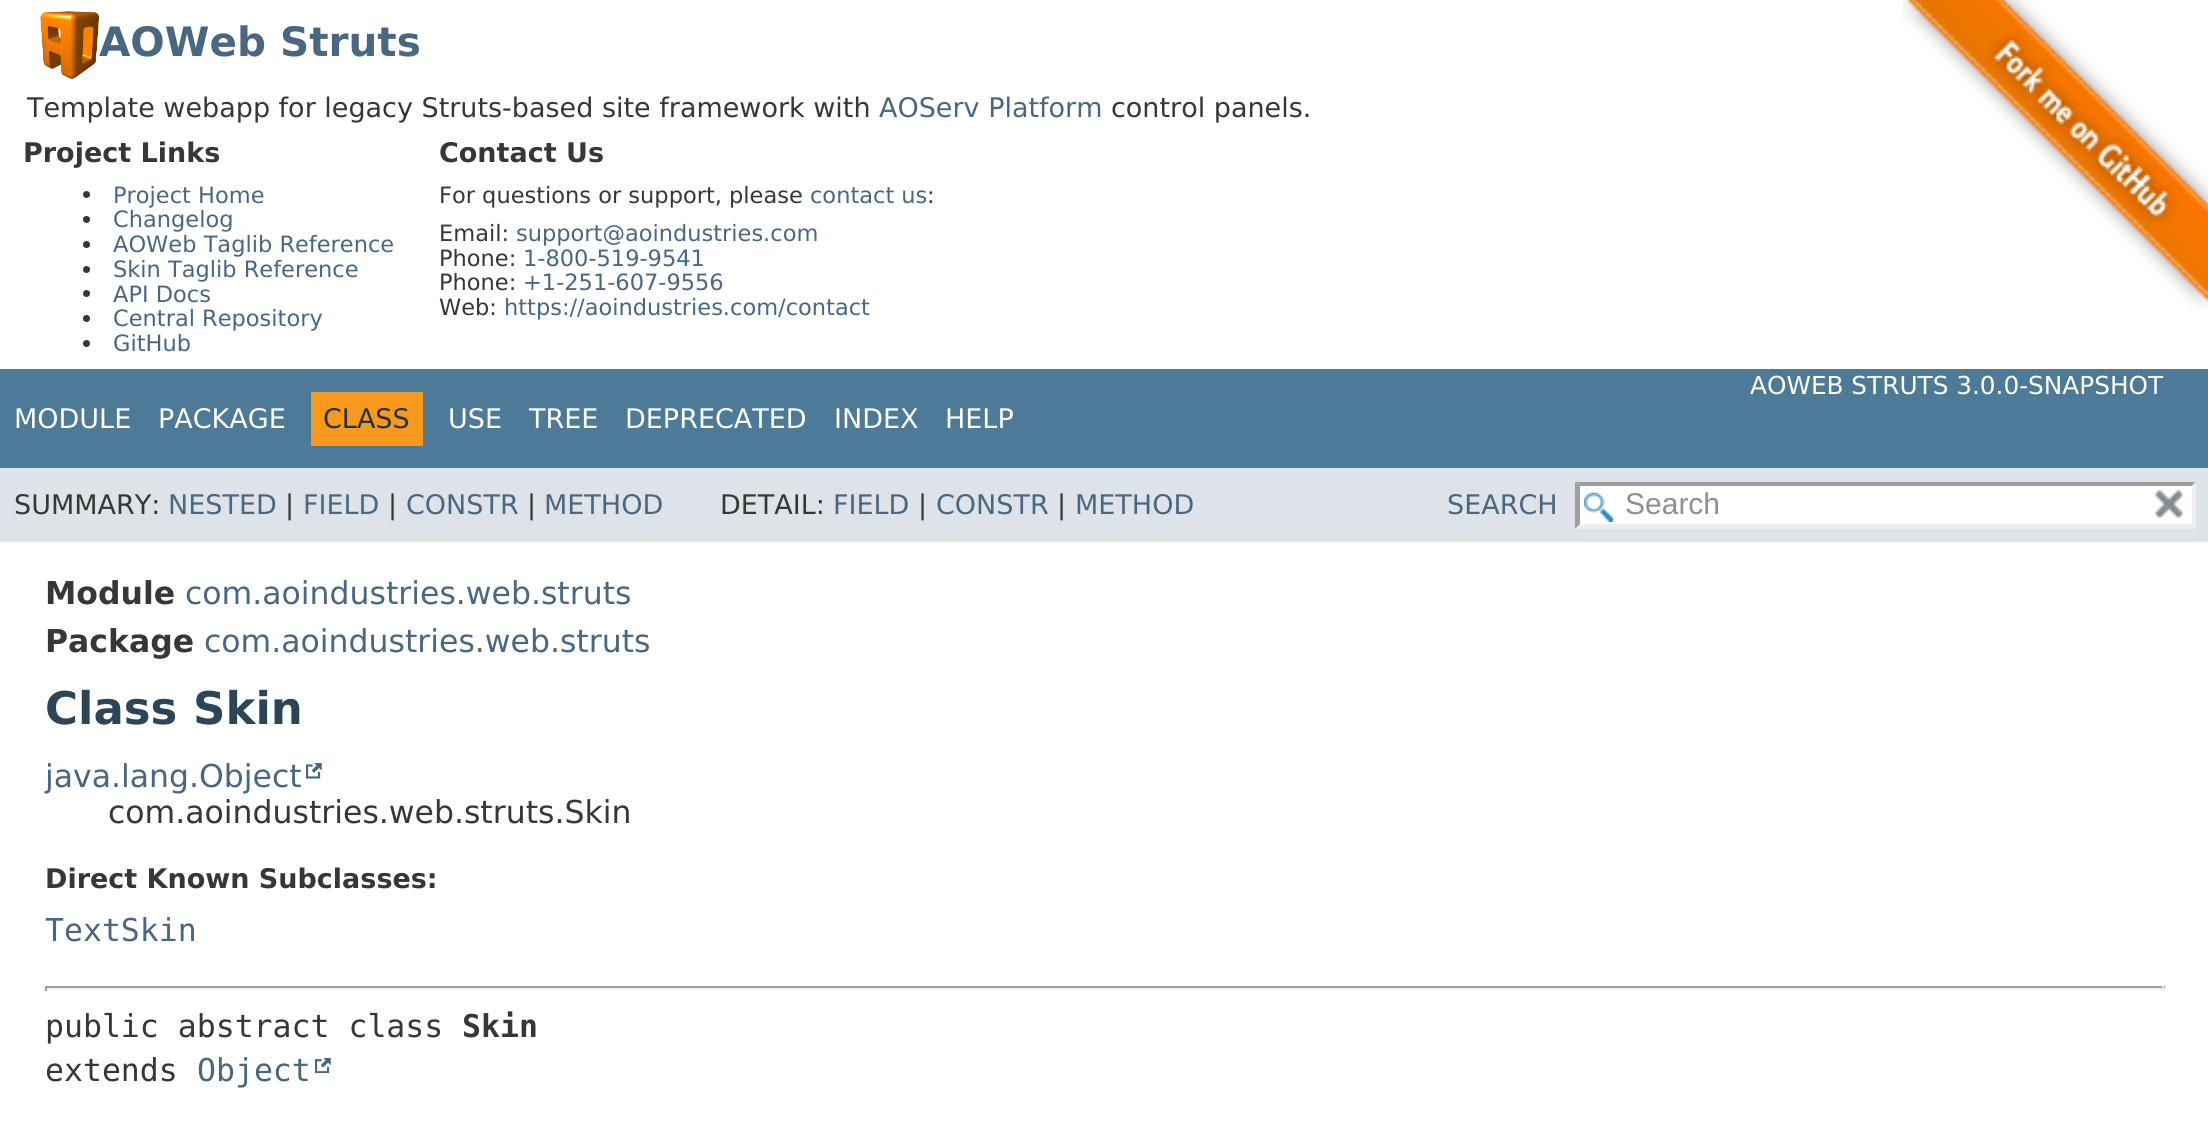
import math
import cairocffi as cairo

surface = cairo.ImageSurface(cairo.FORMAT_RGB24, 2208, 1148)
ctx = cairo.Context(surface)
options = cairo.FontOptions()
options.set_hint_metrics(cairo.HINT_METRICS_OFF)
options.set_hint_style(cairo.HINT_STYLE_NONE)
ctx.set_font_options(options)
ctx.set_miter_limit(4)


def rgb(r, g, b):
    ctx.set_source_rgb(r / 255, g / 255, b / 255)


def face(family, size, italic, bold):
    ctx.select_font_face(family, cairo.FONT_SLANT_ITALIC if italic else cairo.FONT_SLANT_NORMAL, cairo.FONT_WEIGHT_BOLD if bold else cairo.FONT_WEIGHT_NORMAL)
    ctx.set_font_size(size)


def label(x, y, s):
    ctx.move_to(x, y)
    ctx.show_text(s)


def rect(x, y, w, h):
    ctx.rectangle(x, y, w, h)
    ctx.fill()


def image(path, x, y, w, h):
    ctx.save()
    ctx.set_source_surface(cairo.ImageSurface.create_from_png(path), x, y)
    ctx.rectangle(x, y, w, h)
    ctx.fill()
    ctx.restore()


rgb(255, 255, 255)
ctx.paint()
image('image0.png', 40, 11, 59, 68)
face('DejaVu Sans', 40.5, 0, 1)
rgb(74, 103, 130)
label(99, 56, 'AOWeb Struts')
face('DejaVu Sans', 27, 0, 0)
rgb(53, 56, 51)
label(27, 117, 'Template webapp for legacy Struts-based site framework with')
rgb(74, 103, 130)
label(879, 117, 'AOServ Platform')
rgb(53, 56, 51)
label(1111, 117, 'control panels.')
face('DejaVu Sans', 27, 0, 1)
label(23, 162, 'Project Links')
ctx.new_path()
ctx.arc(86.5, 194.5, 3.5, 0, 2 * math.pi)
ctx.fill()
face('DejaVu Sans', 22.5, 0, 0)
rgb(74, 103, 130)
label(113, 203, 'Project Home')
rgb(53, 56, 51)
ctx.new_path()
ctx.arc(86.5, 219.5, 3.5, 0, 2 * math.pi)
ctx.fill()
rgb(74, 103, 130)
label(113, 227, 'Changelog')
rgb(53, 56, 51)
ctx.new_path()
ctx.arc(86.5, 244.5, 3.5, 0, 2 * math.pi)
ctx.fill()
rgb(74, 103, 130)
label(113, 252, 'AOWeb Taglib Reference')
rgb(53, 56, 51)
ctx.new_path()
ctx.arc(86.5, 269.5, 3.5, 0, 2 * math.pi)
ctx.fill()
rgb(74, 103, 130)
label(113, 277, 'Skin Taglib Reference')
rgb(53, 56, 51)
ctx.new_path()
ctx.arc(86.5, 293.5, 3.5, 0, 2 * math.pi)
ctx.fill()
rgb(74, 103, 130)
label(113, 302, 'API Docs')
rgb(53, 56, 51)
ctx.new_path()
ctx.arc(86.5, 318.5, 3.5, 0, 2 * math.pi)
ctx.fill()
rgb(74, 103, 130)
label(113, 326, 'Central Repository')
rgb(53, 56, 51)
ctx.new_path()
ctx.arc(86.5, 343.5, 3.5, 0, 2 * math.pi)
ctx.fill()
rgb(74, 103, 130)
label(113, 351, 'GitHub')
face('DejaVu Sans', 27, 0, 1)
rgb(53, 56, 51)
label(439, 162, 'Contact Us')
face('DejaVu Sans', 22.5, 0, 0)
label(439, 203, 'For questions or support, please')
rgb(74, 103, 130)
label(810, 203, 'contact us')
rgb(53, 56, 51)
label(927, 203, ':')
label(439, 241, 'Email:')
rgb(74, 103, 130)
label(516, 241, 'support@aoindustries.com')
rgb(53, 56, 51)
label(439, 266, 'Phone:')
rgb(74, 103, 130)
label(523, 266, '1-800-519-9541')
rgb(53, 56, 51)
label(439, 290, 'Phone:')
rgb(74, 103, 130)
label(523, 290, '+1-251-607-9556')
rgb(53, 56, 51)
label(439, 315, 'Web:')
rgb(74, 103, 130)
label(504, 315, 'https://aoindustries.com/contact')
image('image1.png', 1902, 0, 306, 308)
rgb(77, 122, 151)
rect(0, 369, 2208, 99)
face('DejaVu Sans', 24.75, 0, 0)
rgb(255, 255, 255)
label(1750, 394, 'AOWEB STRUTS 3.0.0-SNAPSHOT')
face('DejaVu Sans', 27, 0, 0)
label(14, 428, 'MODULE')
label(158, 428, 'PACKAGE')
rgb(248, 152, 29)
rect(311, 392, 112, 54)
rgb(37, 52, 65)
label(323, 428, 'CLASS')
rgb(255, 255, 255)
label(448, 428, 'USE')
label(529, 428, 'TREE')
label(625, 428, 'DEPRECATED')
label(834, 428, 'INDEX')
label(945, 428, 'HELP')
rgb(222, 227, 233)
rect(0, 468, 2208, 74)
rgb(53, 56, 51)
label(14, 514, 'SUMMARY:')
rgb(74, 103, 130)
label(168, 514, 'NESTED')
rgb(53, 56, 51)
label(285, 514, '|')
rgb(74, 103, 130)
label(303, 514, 'FIELD')
rgb(53, 56, 51)
label(388, 514, '|')
rgb(74, 103, 130)
label(406, 514, 'CONSTR')
rgb(53, 56, 51)
label(527, 514, '|')
rgb(74, 103, 130)
label(544, 514, 'METHOD')
rgb(53, 56, 51)
label(720, 514, 'DETAIL:')
rgb(74, 103, 130)
label(833, 514, 'FIELD')
rgb(53, 56, 51)
label(918, 514, '|')
rgb(74, 103, 130)
label(936, 514, 'CONSTR')
rgb(53, 56, 51)
label(1057, 514, '|')
rgb(74, 103, 130)
label(1075, 514, 'METHOD')
label(1447, 514, 'SEARCH')
rgb(255, 255, 255)
rect(1575, 482, 621, 47)
image('image2.png', 1584, 492, 30, 30)
rgb(158, 158, 158)
ctx.new_path()
ctx.move_to(1575, 482)
ctx.line_to(2196, 482)
ctx.line_to(2192, 486)
ctx.line_to(1580, 486)
ctx.close_path()
ctx.fill()
rgb(237, 237, 237)
ctx.new_path()
ctx.move_to(2196, 482)
ctx.line_to(2196, 529)
ctx.line_to(2192, 524)
ctx.line_to(2192, 486)
ctx.close_path()
ctx.fill()
ctx.new_path()
ctx.move_to(2196, 529)
ctx.line_to(1575, 529)
ctx.line_to(1580, 524)
ctx.line_to(2192, 524)
ctx.close_path()
ctx.fill()
rgb(158, 158, 158)
ctx.new_path()
ctx.move_to(1575, 529)
ctx.line_to(1575, 482)
ctx.line_to(1580, 486)
ctx.line_to(1580, 524)
ctx.close_path()
ctx.fill()
face('Liberation Sans', 30, 0, 0)
rgb(144, 144, 144)
label(1625, 514, 'Search')
image('image3.png', 2155, 489, 28, 29)
face('DejaVu Sans', 31.5, 0, 1)
rgb(53, 56, 51)
label(45, 604, 'Module')
face('DejaVu Sans', 31.5, 0, 0)
rgb(74, 103, 130)
label(185, 604, 'com.aoindustries.web.struts')
face('DejaVu Sans', 31.5, 0, 1)
rgb(53, 56, 51)
label(45, 652, 'Package')
face('DejaVu Sans', 31.5, 0, 0)
rgb(74, 103, 130)
label(204, 652, 'com.aoindustries.web.struts')
face('DejaVu Sans', 45, 0, 1)
rgb(44, 69, 87)
label(45, 724, 'Class Skin')
face('DejaVu Sans', 31.5, 0, 0)
rgb(74, 103, 130)
label(45, 787, 'java.lang.Object')
image('image4.png', 306, 763, 16, 16)
rgb(53, 56, 51)
label(108, 823, 'com.aoindustries.web.struts.Skin')
face('DejaVu Sans', 27, 0, 1)
label(45, 888, 'Direct Known Subclasses:')
face('DejaVu Sans Mono', 31.5, 0, 0)
rgb(74, 103, 130)
label(45, 941, 'TextSkin')
rgb(159, 159, 159)
rect(45, 986, 2120, 2)
rgb(238, 238, 238)
rect(2162, 986, 2, 5)
rect(45, 988, 2120, 2)
rgb(159, 159, 159)
rect(45, 986, 2, 5)
rgb(53, 56, 51)
label(45, 1037, 'public abstract class')
face('DejaVu Sans Mono', 31.5, 0, 1)
label(462, 1037, 'Skin')
face('DejaVu Sans Mono', 31.5, 0, 0)
label(45, 1081, 'extends')
rgb(74, 103, 130)
label(197, 1081, 'Object')
image('image5.png', 315, 1058, 16, 15)
surface.write_to_png('render.png')
